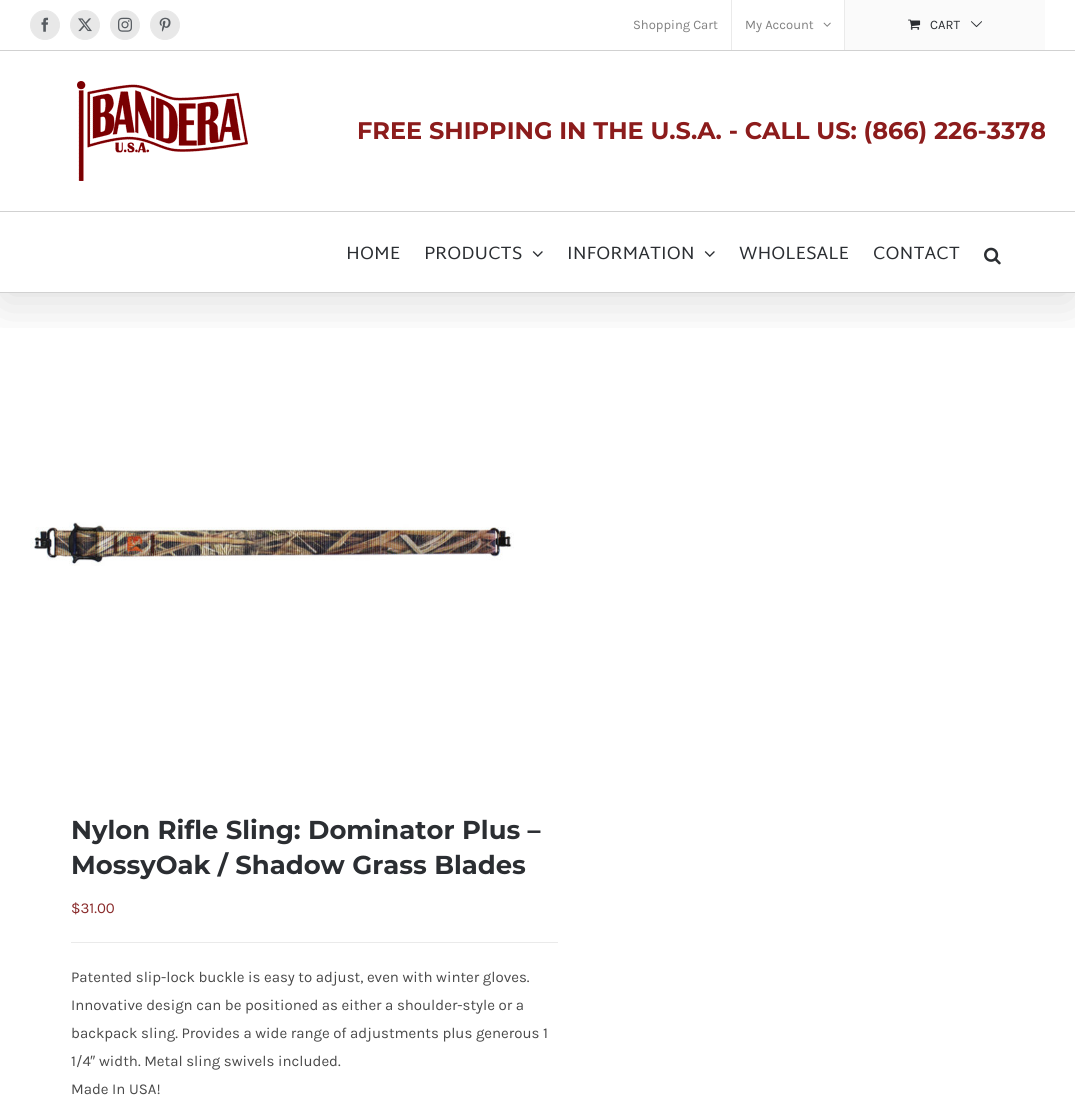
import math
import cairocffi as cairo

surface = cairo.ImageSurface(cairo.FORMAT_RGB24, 1075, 1099)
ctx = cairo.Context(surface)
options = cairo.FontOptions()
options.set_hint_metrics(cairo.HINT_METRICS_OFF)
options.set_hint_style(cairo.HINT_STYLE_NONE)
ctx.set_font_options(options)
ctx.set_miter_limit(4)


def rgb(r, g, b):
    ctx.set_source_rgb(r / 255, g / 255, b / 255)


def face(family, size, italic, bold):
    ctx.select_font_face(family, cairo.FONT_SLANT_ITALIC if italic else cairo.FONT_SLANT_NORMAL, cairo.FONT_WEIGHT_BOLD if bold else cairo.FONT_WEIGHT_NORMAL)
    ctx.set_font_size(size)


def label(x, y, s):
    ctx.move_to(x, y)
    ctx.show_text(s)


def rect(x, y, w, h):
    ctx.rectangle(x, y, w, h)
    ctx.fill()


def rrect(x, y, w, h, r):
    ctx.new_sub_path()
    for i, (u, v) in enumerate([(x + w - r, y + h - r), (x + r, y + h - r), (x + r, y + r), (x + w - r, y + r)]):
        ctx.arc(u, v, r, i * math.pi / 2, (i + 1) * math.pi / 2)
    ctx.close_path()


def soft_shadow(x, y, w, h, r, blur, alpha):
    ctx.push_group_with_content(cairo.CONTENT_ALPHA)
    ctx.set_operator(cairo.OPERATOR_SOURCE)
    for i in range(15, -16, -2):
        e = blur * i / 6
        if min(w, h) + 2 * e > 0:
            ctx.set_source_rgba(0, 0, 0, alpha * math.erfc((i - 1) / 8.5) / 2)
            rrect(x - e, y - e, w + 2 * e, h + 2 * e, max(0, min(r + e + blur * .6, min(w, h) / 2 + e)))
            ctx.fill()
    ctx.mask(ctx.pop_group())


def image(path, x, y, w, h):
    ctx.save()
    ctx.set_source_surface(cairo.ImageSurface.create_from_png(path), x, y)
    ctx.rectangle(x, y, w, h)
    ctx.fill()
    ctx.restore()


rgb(255, 255, 255)
ctx.paint()
ctx.save()
ctx.rectangle(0, 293, 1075, 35)
ctx.clip()
rgb(0, 0, 0)
soft_shadow(2, 12, 1071, 289, 0, 25, 0.14)
ctx.restore()
rgb(209, 209, 209)
rect(0, 50, 1075, 1)
rgb(232, 232, 232)
ctx.arc(45, 25, 14.5, 0, 2 * math.pi)
ctx.fill_preserve()
ctx.set_line_width(1)
ctx.stroke()
image('image0.png', 41, 17, 8, 15)
ctx.arc(85, 25, 14.5, 0, 2 * math.pi)
ctx.fill_preserve()
ctx.stroke()
image('image1.png', 78, 18, 14, 14)
ctx.arc(125, 25, 14.5, 0, 2 * math.pi)
ctx.fill_preserve()
ctx.stroke()
image('image2.png', 118, 17, 14, 15)
ctx.arc(165, 25, 14.5, 0, 2 * math.pi)
ctx.fill_preserve()
ctx.stroke()
image('image3.png', 159, 17, 12, 15)
face('Karla', 13, 0, 0)
rgb(128, 128, 128)
label(633, 29, 'Shopping Cart')
rgb(234, 234, 234)
rect(731, 0, 1, 50)
rgb(128, 128, 128)
label(745, 29, 'My Account')
image('image4.png', 823, 22, 8, 5)
rgb(234, 234, 234)
rect(844, 0, 1, 50)
rgb(250, 250, 250)
rect(845, 0, 200, 50)
image('image5.png', 908, 19, 13, 11)
rgb(43, 46, 50)
label(930, 29, 'CART')
image('image6.png', 971, 21, 11, 7)
rgb(209, 209, 209)
rect(0, 211, 1075, 1)
image('image7.png', 77, 81, 171, 100)
face('Montserrat Thin', 24, 0, 0)
rgb(140, 28, 28)
label(357, 139, 'FREE SHIPPING IN THE U.S.A. - CALL US: (866) 226-3378')
rgb(209, 209, 209)
rect(0, 292, 1075, 1)
face('Martel Sans', 18, 0, 0)
rgb(43, 46, 50)
label(346, 259, 'HOME')
label(424, 259, 'PRODUCTS')
image('image8.png', 532, 251, 11, 6)
label(567, 259, 'INFORMATION')
image('image8.png', 704, 251, 11, 6)
label(739, 259, 'WHOLESALE')
label(873, 259, 'CONTACT')
image('image9.png', 984, 247, 17, 18)
image('image10.png', 30, 522, 484, 44)
face('Montserrat Thin', 25.9, 0, 0)
label(71, 839, 'Nylon Rifle Sling: Dominator Plus –')
label(71, 874, 'MossyOak / Shadow Grass Blades')
face('Karla', 15, 0, 0)
rgb(137, 42, 42)
label(71, 913, '$31.00')
rgb(234, 234, 234)
rect(71, 942, 487, 1)
rgb(73, 73, 73)
label(71, 982, 'Patented slip-lock buckle is easy to adjust, even with winter gloves.')
label(71, 1010, 'Innovative design can be positioned as either a shoulder-style or a')
label(71, 1038, 'backpack sling. Provides a wide range of adjustments plus generous 1')
label(71, 1066, '1/4')
face('Liberation Sans', 15, 0, 0)
label(90, 1066, '″')
face('Karla', 15, 0, 0)
label(99, 1066, 'width. Metal sling swivels included.')
label(71, 1094, 'Made In USA!')
surface.write_to_png('render.png')
